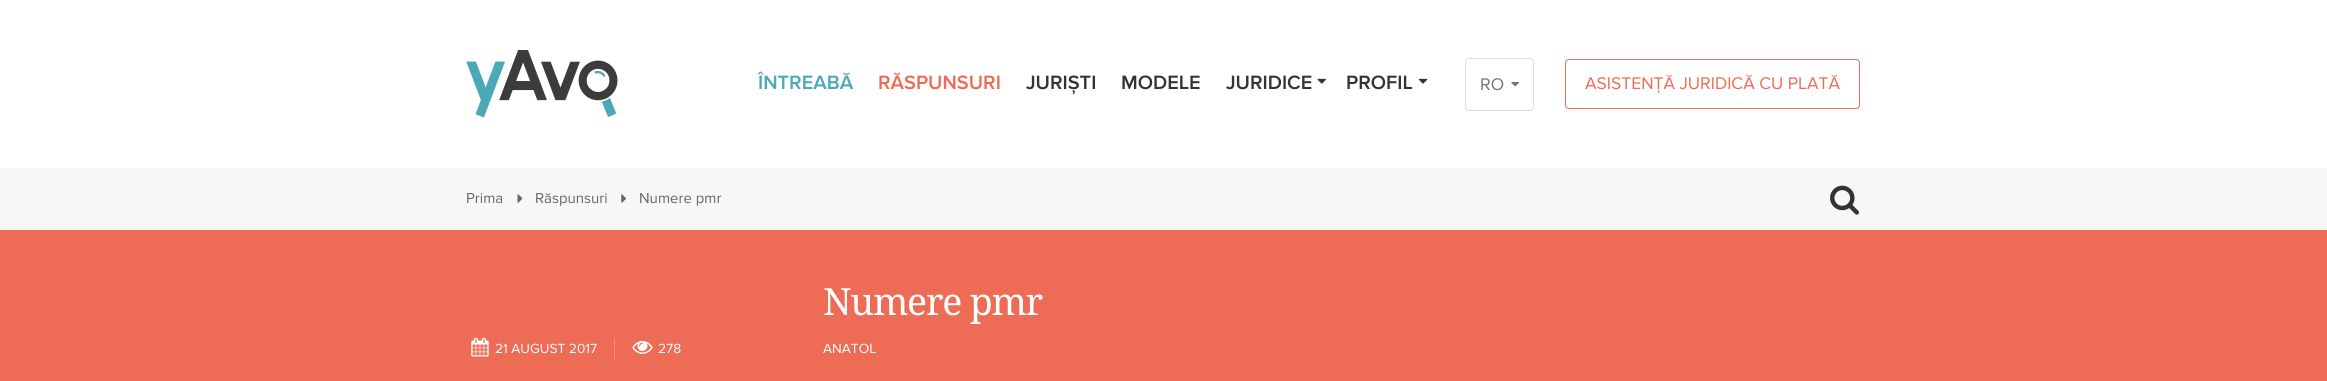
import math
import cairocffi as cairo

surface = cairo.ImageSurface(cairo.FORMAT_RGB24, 2327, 381)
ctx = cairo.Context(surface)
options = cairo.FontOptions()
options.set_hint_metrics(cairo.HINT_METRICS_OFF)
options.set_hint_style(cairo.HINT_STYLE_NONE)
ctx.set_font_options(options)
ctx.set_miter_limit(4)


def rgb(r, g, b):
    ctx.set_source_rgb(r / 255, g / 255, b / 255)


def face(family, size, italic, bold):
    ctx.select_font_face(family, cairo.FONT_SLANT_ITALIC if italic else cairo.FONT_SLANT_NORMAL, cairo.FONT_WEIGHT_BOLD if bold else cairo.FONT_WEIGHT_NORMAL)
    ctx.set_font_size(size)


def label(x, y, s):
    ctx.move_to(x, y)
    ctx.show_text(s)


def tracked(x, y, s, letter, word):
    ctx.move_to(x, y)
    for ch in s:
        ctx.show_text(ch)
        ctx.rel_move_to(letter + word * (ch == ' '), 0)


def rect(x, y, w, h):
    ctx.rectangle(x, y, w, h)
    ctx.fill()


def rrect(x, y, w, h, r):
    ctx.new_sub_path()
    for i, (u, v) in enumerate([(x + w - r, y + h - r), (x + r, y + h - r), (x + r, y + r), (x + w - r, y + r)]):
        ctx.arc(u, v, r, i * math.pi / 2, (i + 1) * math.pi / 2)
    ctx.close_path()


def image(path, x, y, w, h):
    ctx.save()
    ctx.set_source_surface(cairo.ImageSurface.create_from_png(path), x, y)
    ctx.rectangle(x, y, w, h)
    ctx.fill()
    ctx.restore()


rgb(247, 247, 247)
ctx.paint()
rgb(255, 255, 255)
rect(0, 0, 2327, 168)
image('image0.png', 466, 50, 152, 68)
face('Proxima Nova SemiBold', 20, 0, 0)
rgb(74, 170, 183)
label(758, 89, 'ÎNTREABĂ')
rgb(238, 107, 85)
label(878, 89, 'RĂSPUNSURI')
rgb(51, 51, 51)
label(1026, 89, 'JURIȘTI')
label(1121, 89, 'MODELE')
label(1226, 89, 'JURIDICE')
image('image1.png', 1317, 78, 9, 6)
label(1346, 89, 'PROFIL')
image('image2.png', 1418, 78, 10, 6)
rrect(1465.5, 58.5, 68, 52, 3.5)
rgb(221, 221, 221)
ctx.set_line_width(1)
ctx.stroke()
face('Proxima Nova', 17.5, 0, 0)
rgb(119, 119, 119)
label(1480, 90, 'RO')
image('image3.png', 1511, 82, 8, 5)
rrect(1565.5, 59.5, 294, 49, 3.5)
rgb(238, 107, 85)
ctx.stroke()
label(1585, 89, 'ASISTENȚĂ JURIDICĂ CU PLATĂ')
face('Proxima Nova', 15, 0, 0)
rgb(102, 102, 102)
label(466, 203, 'Prima')
image('image4.png', 517, 194, 6, 9)
label(535, 203, 'Răspunsuri')
image('image5.png', 621, 194, 5, 9)
label(639, 203, 'Numere pmr')
image('image6.png', 1830, 185, 29, 30)
rgb(238, 107, 85)
rect(0, 230, 2327, 151)
face('Noto Serif', 37.5, 0, 0)
rgb(255, 255, 255)
tracked(823, 315, 'Numere pmr', -1.25, 0)
image('image7.png', 471, 337, 18, 20)
face('Proxima Nova', 13.75, 0, 0)
label(495, 353, '21 AUGUST 2017')
rgb(242, 140, 123)
rect(614, 338, 1, 22)
image('image8.png', 632, 341, 21, 13)
rgb(255, 255, 255)
label(658, 353, '278')
label(823, 353, 'ANATOL')
surface.write_to_png('render.png')
